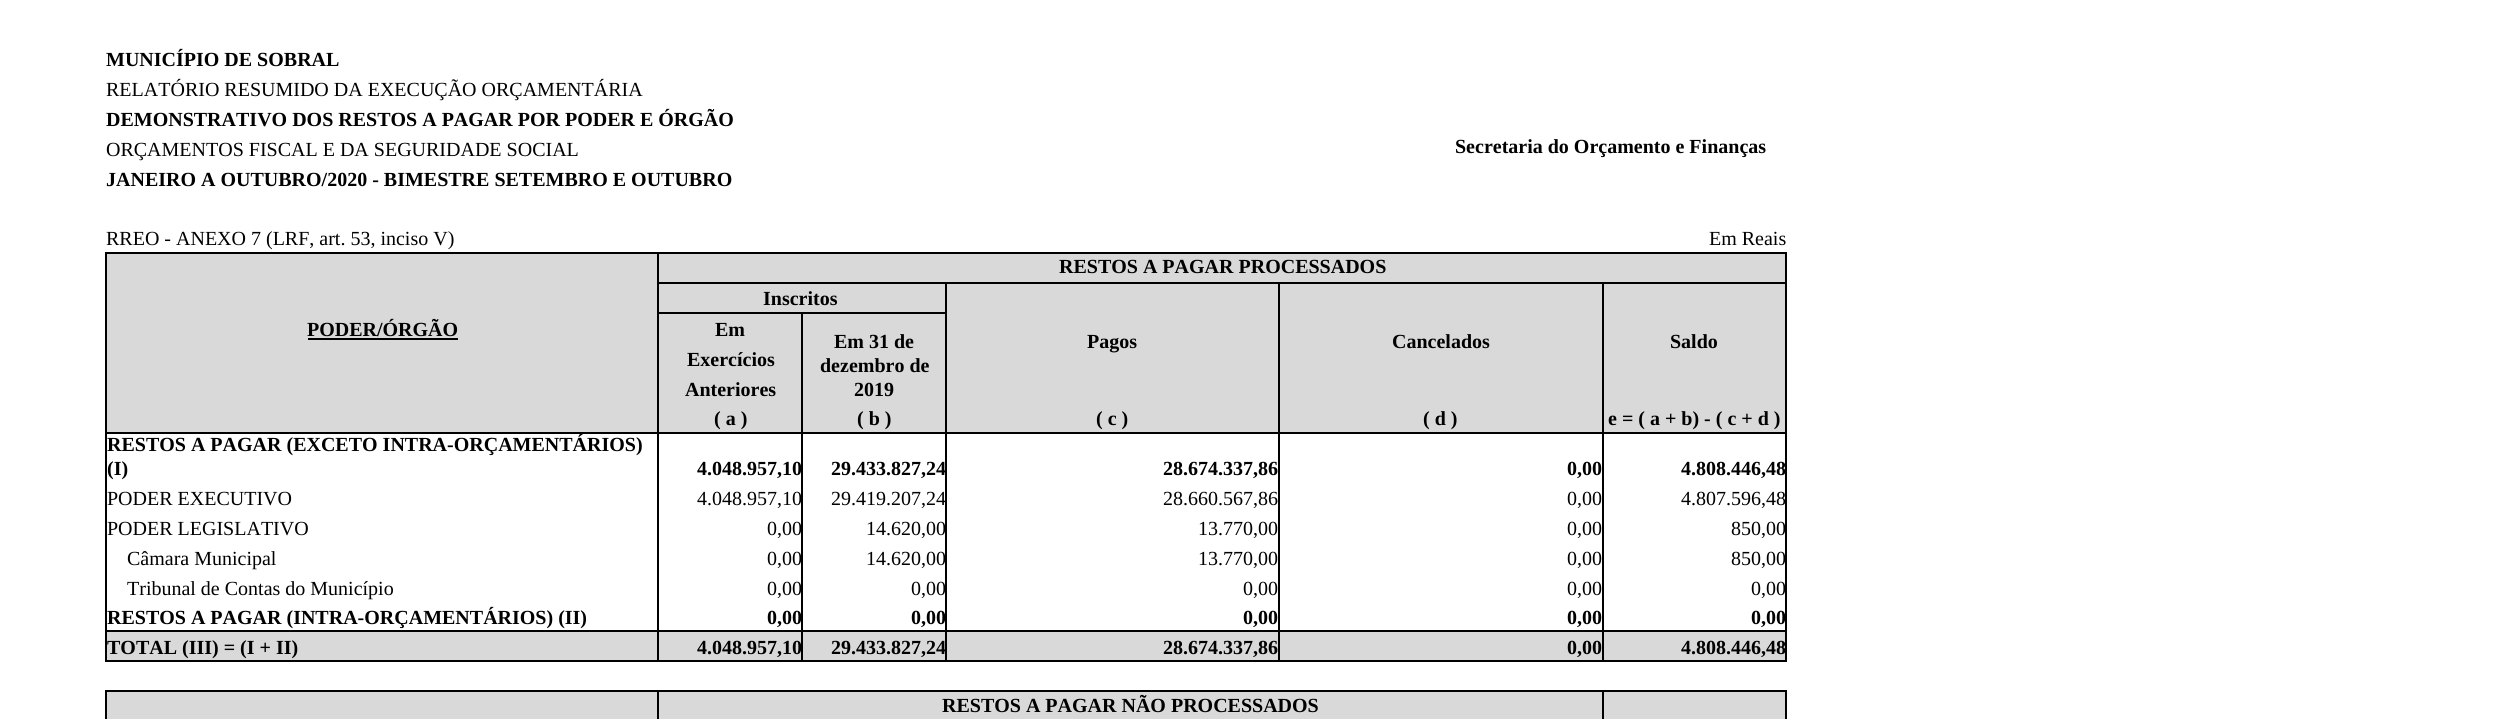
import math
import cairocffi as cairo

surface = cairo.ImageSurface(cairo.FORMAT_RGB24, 2507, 719)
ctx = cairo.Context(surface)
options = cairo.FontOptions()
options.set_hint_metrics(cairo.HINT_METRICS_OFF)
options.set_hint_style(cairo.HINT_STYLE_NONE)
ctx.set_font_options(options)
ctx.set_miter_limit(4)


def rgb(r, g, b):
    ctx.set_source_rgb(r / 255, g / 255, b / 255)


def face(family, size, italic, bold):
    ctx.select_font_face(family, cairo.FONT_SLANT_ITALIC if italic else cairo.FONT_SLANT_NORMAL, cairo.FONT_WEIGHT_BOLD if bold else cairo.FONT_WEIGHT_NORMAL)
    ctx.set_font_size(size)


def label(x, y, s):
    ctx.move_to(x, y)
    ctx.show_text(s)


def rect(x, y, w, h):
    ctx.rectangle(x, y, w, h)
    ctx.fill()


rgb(255, 255, 255)
ctx.paint()
face('Liberation Serif', 20, 0, 1)
rgb(0, 0, 0)
label(106, 66, 'MUNICÍPIO DE SOBRAL')
face('Liberation Serif', 20, 0, 0)
label(106, 96, 'RELATÓRIO RESUMIDO DA EXECUÇÃO ORÇAMENTÁRIA')
face('Liberation Serif', 20, 0, 1)
label(106, 126, 'DEMONSTRATIVO DOS RESTOS A PAGAR POR PODER E ÓRGÃO')
face('Liberation Serif', 20, 0, 0)
label(106, 156, 'ORÇAMENTOS FISCAL E DA SEGURIDADE SOCIAL')
face('Liberation Serif', 20, 0, 1)
label(1455, 153, 'Secretaria do Orçamento e Finanças')
label(106, 186, 'JANEIRO A OUTUBRO/2020 - BIMESTRE SETEMBRO E OUTUBRO')
face('Liberation Serif', 20, 0, 0)
label(106, 245, 'RREO - ANEXO 7 (LRF, art. 53, inciso V)')
label(1709, 245, 'Em Reais')
rgb(217, 217, 217)
rect(107, 254, 550, 178)
rgb(0, 0, 0)
rect(105, 252, 1682, 2)
rect(1278, 630, 509, 2)
rect(1785, 282, 2, 380)
rect(1785, 252, 2, 32)
rect(1602, 660, 185, 2)
rect(1602, 432, 2, 230)
rect(1602, 432, 185, 2)
rect(1602, 282, 2, 152)
rect(1278, 660, 326, 2)
rect(1278, 432, 2, 230)
rect(1278, 432, 326, 2)
rect(1278, 282, 2, 152)
rect(945, 660, 335, 2)
rect(945, 630, 2, 32)
rect(657, 630, 290, 2)
rect(945, 630, 335, 2)
rect(945, 432, 2, 200)
rect(945, 432, 335, 2)
rect(945, 282, 2, 152)
rect(801, 660, 146, 2)
rect(801, 432, 2, 230)
rect(801, 432, 146, 2)
rect(801, 312, 2, 122)
rect(657, 660, 146, 2)
rect(657, 630, 2, 32)
rect(105, 630, 554, 2)
rect(657, 432, 2, 200)
rect(657, 432, 146, 2)
rect(657, 312, 2, 122)
rect(657, 312, 290, 2)
rect(657, 282, 2, 32)
rect(657, 282, 1130, 2)
rect(657, 252, 2, 32)
rect(105, 660, 554, 2)
rect(105, 432, 2, 230)
rect(105, 432, 554, 2)
rect(105, 282, 2, 152)
rect(105, 252, 2, 32)
rgb(217, 217, 217)
rect(659, 254, 1126, 28)
face('Liberation Serif', 20, 0, 1)
rgb(0, 0, 0)
label(1059, 273, 'RESTOS A PAGAR PROCESSADOS')
label(307, 336, 'PODER/ÓRGÃO')
rect(308, 338, 150, 2)
rgb(217, 217, 217)
rect(659, 314, 142, 118)
rgb(0, 0, 0)
label(715, 336, 'Em')
rgb(217, 217, 217)
rect(803, 314, 142, 118)
rgb(0, 0, 0)
label(834, 348, 'Em 31 de')
label(820, 372, 'dezembro de')
label(854, 396, '2019')
rgb(217, 217, 217)
rect(659, 284, 286, 28)
rgb(0, 0, 0)
label(763, 305, 'Inscritos')
rgb(217, 217, 217)
rect(947, 284, 331, 148)
rgb(0, 0, 0)
label(1087, 348, 'Pagos')
rgb(217, 217, 217)
rect(1280, 284, 322, 148)
rgb(0, 0, 0)
label(1392, 348, 'Cancelados')
rgb(217, 217, 217)
rect(1604, 284, 181, 148)
rgb(0, 0, 0)
label(1670, 348, 'Saldo')
label(687, 366, 'Exercícios')
label(685, 396, 'Anteriores')
label(714, 425, '( a )')
label(857, 425, '( b )')
label(1096, 425, '( c )')
label(1423, 425, '( d )')
label(1608, 425, 'e = ( a + b) - ( c + d )')
label(107, 451, 'RESTOS A PAGAR (EXCETO INTRA-ORÇAMENTÁRIOS)')
label(107, 475, '(I)')
label(697, 475, '4.048.957,10')
label(831, 475, '29.433.827,24')
label(1163, 475, '28.674.337,86')
label(1567, 475, '0,00')
label(1681, 475, '4.808.446,48')
face('Liberation Serif', 20, 0, 0)
label(107, 505, 'PODER EXECUTIVO')
label(697, 505, '4.048.957,10')
label(831, 505, '29.419.207,24')
label(1163, 505, '28.660.567,86')
label(1567, 505, '0,00')
label(1681, 505, '4.807.596,48')
label(107, 535, 'PODER LEGISLATIVO')
label(767, 535, '0,00')
label(866, 535, '14.620,00')
label(1198, 535, '13.770,00')
label(1567, 535, '0,00')
label(1731, 535, '850,00')
label(127, 565, 'Câmara Municipal')
label(767, 565, '0,00')
label(866, 565, '14.620,00')
label(1198, 565, '13.770,00')
label(1567, 565, '0,00')
label(1731, 565, '850,00')
label(127, 595, 'Tribunal de Contas do Município')
label(767, 595, '0,00')
label(911, 595, '0,00')
label(1243, 595, '0,00')
label(1567, 595, '0,00')
label(1751, 595, '0,00')
face('Liberation Serif', 20, 0, 1)
label(107, 624, 'RESTOS A PAGAR (INTRA-ORÇAMENTÁRIOS) (II)')
label(767, 624, '0,00')
label(911, 624, '0,00')
label(1243, 624, '0,00')
label(1567, 624, '0,00')
label(1751, 624, '0,00')
rgb(217, 217, 217)
rect(107, 632, 550, 28)
rgb(0, 0, 0)
label(107, 654, 'TOTAL (III) = (I + II)')
rgb(217, 217, 217)
rect(659, 632, 142, 28)
rgb(0, 0, 0)
label(697, 654, '4.048.957,10')
rgb(217, 217, 217)
rect(803, 632, 142, 28)
rgb(0, 0, 0)
label(831, 654, '29.433.827,24')
rgb(217, 217, 217)
rect(947, 632, 331, 28)
rgb(0, 0, 0)
label(1163, 654, '28.674.337,86')
rgb(217, 217, 217)
rect(1280, 632, 322, 28)
rgb(0, 0, 0)
label(1567, 654, '0,00')
rgb(217, 217, 217)
rect(1604, 632, 181, 28)
rgb(0, 0, 0)
label(1681, 654, '4.808.446,48')
rgb(217, 217, 217)
rect(107, 692, 550, 27)
rgb(0, 0, 0)
rect(1602, 690, 185, 2)
rect(1602, 690, 2, 29)
rect(105, 690, 1499, 2)
rect(657, 690, 2, 29)
rect(105, 690, 2, 29)
rgb(217, 217, 217)
rect(659, 692, 943, 27)
rgb(0, 0, 0)
label(942, 712, 'RESTOS A PAGAR NÃO PROCESSADOS')
rgb(217, 217, 217)
rect(1604, 692, 181, 27)
rgb(0, 0, 0)
rect(1785, 690, 2, 29)
surface.write_to_png('render.png')
